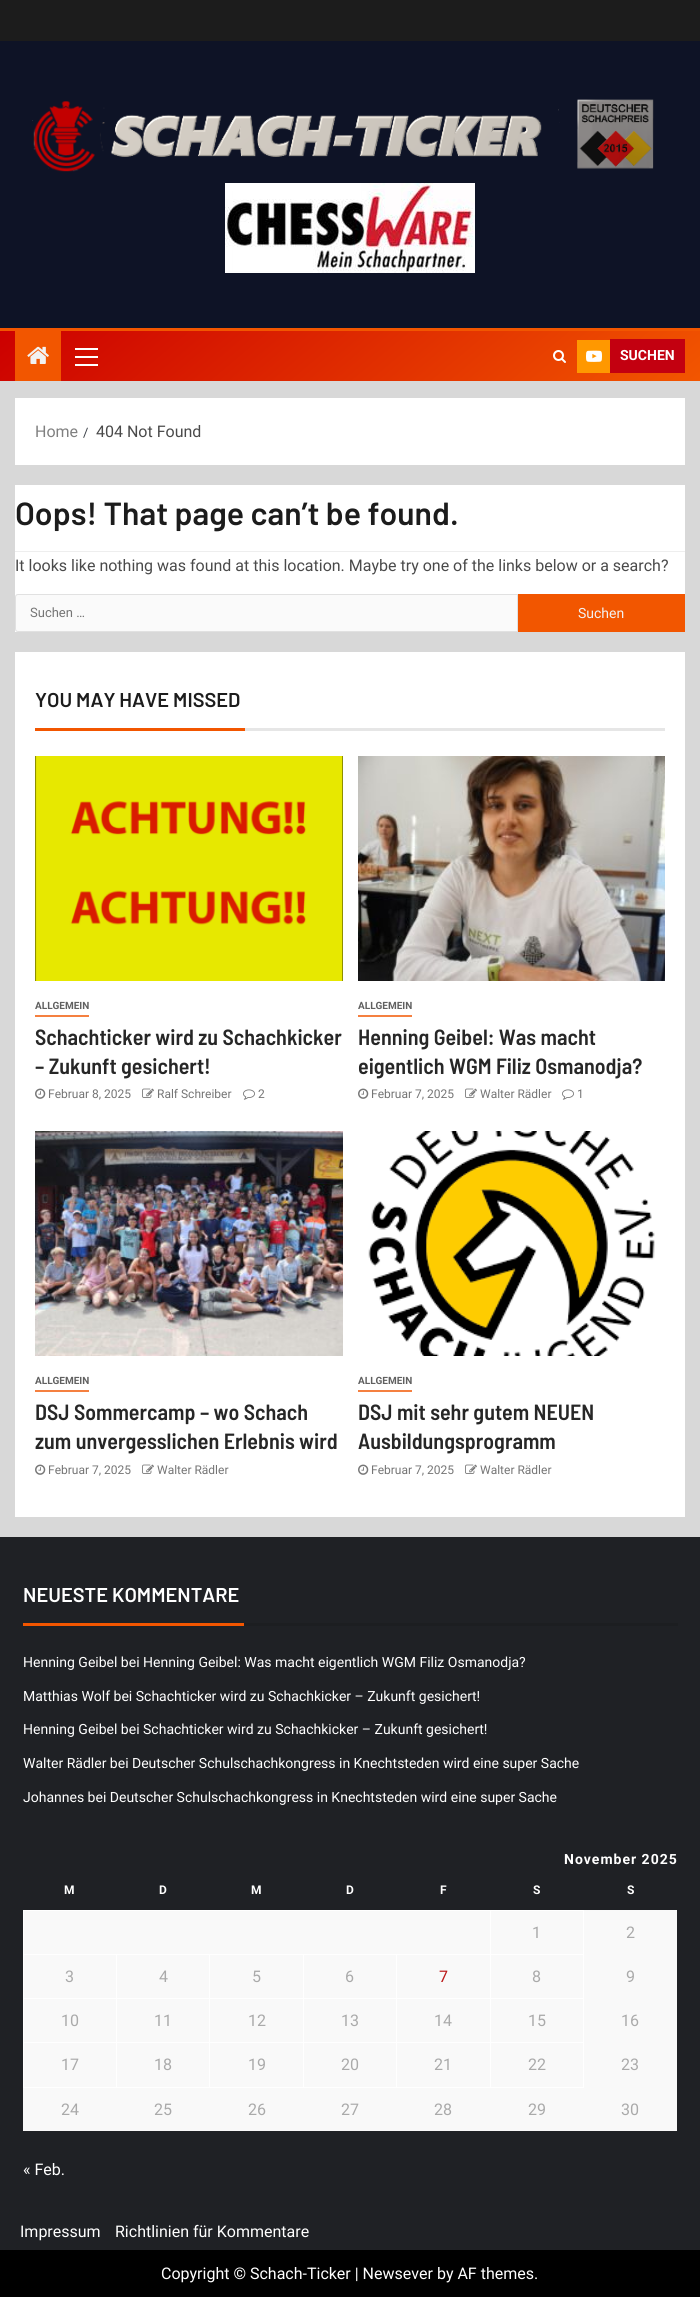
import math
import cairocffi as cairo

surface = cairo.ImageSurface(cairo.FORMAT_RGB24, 700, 2297)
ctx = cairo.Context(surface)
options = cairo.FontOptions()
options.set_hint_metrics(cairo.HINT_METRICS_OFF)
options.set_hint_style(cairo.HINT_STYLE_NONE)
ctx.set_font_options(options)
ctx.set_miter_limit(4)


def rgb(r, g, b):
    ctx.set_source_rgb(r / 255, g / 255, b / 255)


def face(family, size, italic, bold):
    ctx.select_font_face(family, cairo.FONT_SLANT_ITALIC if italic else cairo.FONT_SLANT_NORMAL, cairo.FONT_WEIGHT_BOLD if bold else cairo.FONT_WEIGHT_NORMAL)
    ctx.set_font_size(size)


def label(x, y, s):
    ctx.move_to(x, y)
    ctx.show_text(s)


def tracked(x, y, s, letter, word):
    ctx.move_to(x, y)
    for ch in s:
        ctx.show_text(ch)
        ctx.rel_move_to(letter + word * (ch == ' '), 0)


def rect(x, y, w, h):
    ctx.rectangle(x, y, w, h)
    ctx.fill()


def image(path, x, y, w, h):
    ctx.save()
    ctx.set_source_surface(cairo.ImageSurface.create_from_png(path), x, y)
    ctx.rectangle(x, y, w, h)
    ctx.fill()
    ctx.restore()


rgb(216, 216, 216)
ctx.paint()
rgb(28, 28, 28)
rect(0, 0, 700, 41)
rgb(14, 19, 38)
rect(0, 41, 700, 287)
image('image0.png', 32, 99, 622, 73)
image('image1.png', 225, 183, 250, 90)
gradient = cairo.LinearGradient(193, 169, 507, 543)
gradient.add_color_stop_rgba(0, 0.8, 0, 0, 1)
gradient.add_color_stop_rgba(1, 0.949, 0.337, 0, 1)
ctx.set_source(gradient)
rect(0, 331, 700, 50)
rgb(242, 86, 0)
rect(0, 328, 700, 3)
rect(15, 331, 46, 50)
image('image2.png', 27, 346, 22, 18)
rgb(255, 255, 255)
rect(75, 356, 23, 2)
rect(75, 348, 23, 2)
rect(75, 364, 23, 2)
image('image3.png', 553, 350, 13, 13)
rgb(255, 152, 0)
rect(577, 340, 33, 33)
image('image4.png', 586, 350, 16, 12)
rgb(195, 0, 16)
rect(610, 339, 75, 34)
face('Roboto', 14, 0, 1)
rgb(255, 255, 255)
label(620, 360, 'SUCHEN')
rect(15, 398, 670, 67)
face('Roboto', 16, 0, 0)
rgb(128, 128, 128)
label(35, 437, 'Home')
face('Roboto', 13, 0, 0)
rgb(57, 62, 70)
label(83, 437, '/')
face('Roboto', 16, 0, 0)
rgb(74, 74, 74)
label(96, 437, '404 Not Found')
rgb(255, 255, 255)
rect(15, 485, 670, 147)
rgb(238, 238, 238)
rect(15, 551, 670, 1)
face('Barlow SemiBold', 32, 0, 0)
rgb(28, 28, 28)
label(15, 525, 'Oops! That page can’t be found.')
face('Roboto', 16, 0, 0)
rgb(74, 74, 74)
label(15, 571, 'It looks like nothing was found at this location. Maybe try one of the links below or a search?')
rgb(250, 250, 250)
ctx.new_path()
ctx.move_to(18, 594.5)
ctx.line_to(517.5, 594.5)
ctx.line_to(517.5, 631.5)
ctx.line_to(18, 631.5)
ctx.curve_to(16.5, 631.5, 15.5, 630.5, 15.5, 629)
ctx.line_to(15.5, 597)
ctx.curve_to(15.5, 595.5, 16.5, 594.5, 18, 594.5)
ctx.close_path()
ctx.fill_preserve()
rgb(225, 225, 225)
ctx.set_line_width(1)
ctx.stroke()
face('Roboto', 13, 0, 0)
rgb(117, 117, 117)
label(30, 617, 'Suchen …')
rgb(242, 86, 0)
rect(518, 594, 167, 38)
face('Roboto', 14, 0, 0)
rgb(242, 242, 242)
label(578, 618, 'Suchen')
rgb(255, 255, 255)
rect(15, 652, 670, 865)
face('Barlow SemiBold', 20, 0, 0)
rgb(28, 28, 28)
label(35, 707, 'YOU MAY HAVE MISSED')
rgb(242, 86, 0)
rect(35, 728, 210, 3)
rgb(230, 230, 230)
rect(245, 728, 420, 3)
image('image5.png', 35, 756, 308, 225)
rgb(245, 128, 64)
rect(35, 1015, 54, 2)
face('Roboto', 10, 0, 1)
rgb(96, 96, 96)
label(35, 1009, 'ALLGEMEIN')
face('Barlow Semi Condensed SemiBold', 22, 0, 0)
rgb(39, 39, 39)
label(35, 1045, 'Schachticker wird zu Schachkicker')
label(35, 1074, '– Zukunft gesichert!')
image('image6.png', 35, 1088, 11, 11)
face('Roboto', 12, 0, 0)
rgb(117, 117, 117)
label(48, 1098, 'Februar 8, 2025')
image('image7.png', 142, 1088, 12, 10)
label(157, 1098, 'Ralf Schreiber')
image('image8.png', 243, 1089, 12, 11)
label(258, 1098, '2')
image('image9.png', 358, 756, 307, 225)
rgb(245, 128, 64)
rect(358, 1015, 54, 2)
face('Roboto', 10, 0, 1)
rgb(96, 96, 96)
label(358, 1009, 'ALLGEMEIN')
face('Barlow Semi Condensed SemiBold', 22, 0, 0)
rgb(39, 39, 39)
label(358, 1045, 'Henning Geibel: Was macht')
label(358, 1074, 'eigentlich WGM Filiz Osmanodja?')
image('image6.png', 358, 1088, 11, 11)
face('Roboto', 12, 0, 0)
rgb(117, 117, 117)
label(371, 1098, 'Februar 7, 2025')
image('image7.png', 465, 1088, 12, 10)
label(480, 1098, 'Walter Rädler')
image('image8.png', 562, 1089, 12, 11)
label(577, 1098, '1')
image('image10.png', 35, 1131, 308, 225)
rgb(245, 128, 64)
rect(35, 1390, 54, 2)
face('Roboto', 10, 0, 1)
rgb(96, 96, 96)
label(35, 1384, 'ALLGEMEIN')
face('Barlow Semi Condensed SemiBold', 22, 0, 0)
rgb(39, 39, 39)
label(35, 1420, 'DSJ Sommercamp – wo Schach')
label(35, 1449, 'zum unvergesslichen Erlebnis wird')
image('image6.png', 35, 1464, 11, 11)
face('Roboto', 12, 0, 0)
rgb(117, 117, 117)
label(48, 1474, 'Februar 7, 2025')
image('image7.png', 142, 1464, 12, 10)
label(157, 1474, 'Walter Rädler')
image('image11.png', 358, 1131, 307, 225)
rgb(245, 128, 64)
rect(358, 1390, 54, 2)
face('Roboto', 10, 0, 1)
rgb(96, 96, 96)
label(358, 1384, 'ALLGEMEIN')
face('Barlow Semi Condensed SemiBold', 22, 0, 0)
rgb(39, 39, 39)
label(358, 1420, 'DSJ mit sehr gutem NEUEN')
label(358, 1449, 'Ausbildungsprogramm')
image('image6.png', 358, 1464, 11, 11)
face('Roboto', 12, 0, 0)
rgb(117, 117, 117)
label(371, 1474, 'Februar 7, 2025')
image('image7.png', 465, 1464, 12, 10)
label(480, 1474, 'Walter Rädler')
rgb(31, 33, 37)
rect(0, 1537, 700, 713)
face('Barlow SemiBold', 20, 0, 0)
rgb(255, 255, 255)
label(23, 1602, 'NEUESTE KOMMENTARE')
rgb(242, 86, 0)
rect(23, 1623, 221, 3)
rgb(28, 30, 33)
rect(244, 1623, 434, 3)
face('Roboto', 14, 0, 0)
rgb(255, 255, 255)
label(23, 1667, 'Henning Geibel bei Henning Geibel: Was macht eigentlich WGM Filiz Osmanodja?')
label(23, 1701, 'Matthias Wolf bei Schachticker wird zu Schachkicker – Zukunft gesichert!')
label(23, 1734, 'Henning Geibel bei Schachticker wird zu Schachkicker – Zukunft gesichert!')
label(23, 1768, 'Walter Rädler bei Deutscher Schulschachkongress in Knechtsteden wird eine super Sache')
label(23, 1802, 'Johannes bei Deutscher Schulschachkongress in Knechtsteden wird eine super Sache')
face('Roboto', 14, 0, 1)
tracked(564, 1864, 'November 2025', 1, 0)
face('Roboto', 12, 0, 1)
label(64, 1894, 'M')
label(159, 1894, 'D')
label(251, 1894, 'M')
label(346, 1894, 'D')
label(440, 1894, 'F')
label(533, 1894, 'S')
label(627, 1894, 'S')
rgb(249, 249, 249)
rect(24, 1911, 466, 43)
rgb(255, 255, 255)
rect(490, 1910, 94, 1)
rect(490, 1954, 94, 1)
rect(490, 1998, 94, 1)
rect(490, 2042, 94, 1)
rect(583, 2042, 1, 46)
rect(490, 2087, 94, 1)
rect(490, 2042, 1, 46)
rect(396, 2042, 95, 1)
rect(490, 1998, 1, 45)
rect(396, 1998, 95, 1)
rect(490, 1954, 1, 45)
rect(396, 1954, 95, 1)
rect(490, 1910, 1, 45)
rect(23, 1910, 468, 1)
rect(396, 2087, 95, 1)
rect(396, 2042, 1, 46)
rect(303, 2042, 94, 1)
rect(396, 1998, 1, 45)
rect(303, 1998, 94, 1)
rect(396, 1954, 1, 45)
rect(303, 1954, 94, 1)
rect(303, 2087, 94, 1)
rect(303, 2042, 1, 46)
rect(209, 2042, 95, 1)
rect(303, 1998, 1, 45)
rect(209, 1998, 95, 1)
rect(303, 1954, 1, 45)
rect(209, 1954, 95, 1)
rect(209, 2087, 95, 1)
rect(209, 2042, 1, 46)
rect(116, 2042, 94, 1)
rect(209, 1998, 1, 45)
rect(116, 1998, 94, 1)
rect(209, 1954, 1, 45)
rect(116, 1954, 94, 1)
rect(116, 2087, 94, 1)
rect(116, 2042, 1, 46)
rect(23, 2042, 94, 1)
rect(116, 1998, 1, 45)
rect(23, 1998, 94, 1)
rect(116, 1954, 1, 45)
rect(23, 1954, 94, 1)
rect(23, 2087, 94, 1)
rect(23, 2042, 1, 46)
rect(23, 1998, 1, 45)
rect(23, 1954, 1, 45)
rect(23, 1910, 1, 45)
rgb(249, 249, 249)
rect(491, 1911, 92, 43)
rgb(255, 255, 255)
rect(583, 1998, 1, 45)
rect(583, 1954, 1, 45)
rect(583, 1910, 1, 45)
face('Roboto', 16, 0, 0)
rgb(170, 170, 170)
label(532, 1938, '1')
rgb(249, 249, 249)
rect(584, 1910, 93, 221)
rgb(170, 170, 170)
label(626, 1938, '2')
rgb(249, 249, 249)
rect(24, 1955, 92, 43)
rgb(170, 170, 170)
label(65, 1982, '3')
rgb(249, 249, 249)
rect(117, 1955, 92, 43)
rgb(170, 170, 170)
label(159, 1982, '4')
rgb(249, 249, 249)
rect(210, 1955, 93, 43)
rgb(170, 170, 170)
label(252, 1982, '5')
rgb(249, 249, 249)
rect(304, 1955, 92, 43)
rgb(170, 170, 170)
label(345, 1982, '6')
rgb(249, 249, 249)
rect(397, 1955, 93, 43)
rgb(187, 25, 25)
label(439, 1982, '7')
rgb(249, 249, 249)
rect(491, 1955, 92, 43)
rgb(170, 170, 170)
label(532, 1982, '8')
label(626, 1982, '9')
rgb(249, 249, 249)
rect(24, 1999, 92, 43)
rgb(170, 170, 170)
label(61, 2026, '10')
rgb(249, 249, 249)
rect(117, 1999, 92, 43)
rgb(170, 170, 170)
label(154, 2026, '11')
rgb(249, 249, 249)
rect(210, 1999, 93, 43)
rgb(170, 170, 170)
label(248, 2026, '12')
rgb(249, 249, 249)
rect(304, 1999, 92, 43)
rgb(170, 170, 170)
label(341, 2026, '13')
rgb(249, 249, 249)
rect(397, 1999, 93, 43)
rgb(170, 170, 170)
label(434, 2026, '14')
rgb(249, 249, 249)
rect(491, 1999, 92, 43)
rgb(170, 170, 170)
label(528, 2026, '15')
label(621, 2026, '16')
rgb(249, 249, 249)
rect(24, 2043, 92, 44)
rgb(170, 170, 170)
label(61, 2070, '17')
rgb(249, 249, 249)
rect(117, 2043, 92, 44)
rgb(170, 170, 170)
label(154, 2070, '18')
rgb(249, 249, 249)
rect(210, 2043, 93, 44)
rgb(170, 170, 170)
label(248, 2070, '19')
rgb(249, 249, 249)
rect(304, 2043, 92, 44)
rgb(170, 170, 170)
label(341, 2070, '20')
rgb(249, 249, 249)
rect(397, 2043, 93, 44)
rgb(170, 170, 170)
label(434, 2070, '21')
rgb(249, 249, 249)
rect(491, 2043, 92, 44)
rgb(170, 170, 170)
label(528, 2070, '22')
label(621, 2070, '23')
rgb(249, 249, 249)
rect(23, 2088, 561, 43)
rgb(170, 170, 170)
label(61, 2115, '24')
label(154, 2115, '25')
label(248, 2115, '26')
label(341, 2115, '27')
label(434, 2115, '28')
label(528, 2115, '29')
label(621, 2115, '30')
rgb(255, 255, 255)
label(23, 2175, '« Feb.')
label(20, 2237, 'Impressum')
label(115, 2237, 'Richtlinien für Kommentare')
rgb(0, 0, 0)
rect(0, 2250, 700, 47)
rgb(255, 255, 255)
label(161, 2279, 'Copyright © Schach-Ticker | Newsever by AF themes.')
surface.write_to_png('render.png')
